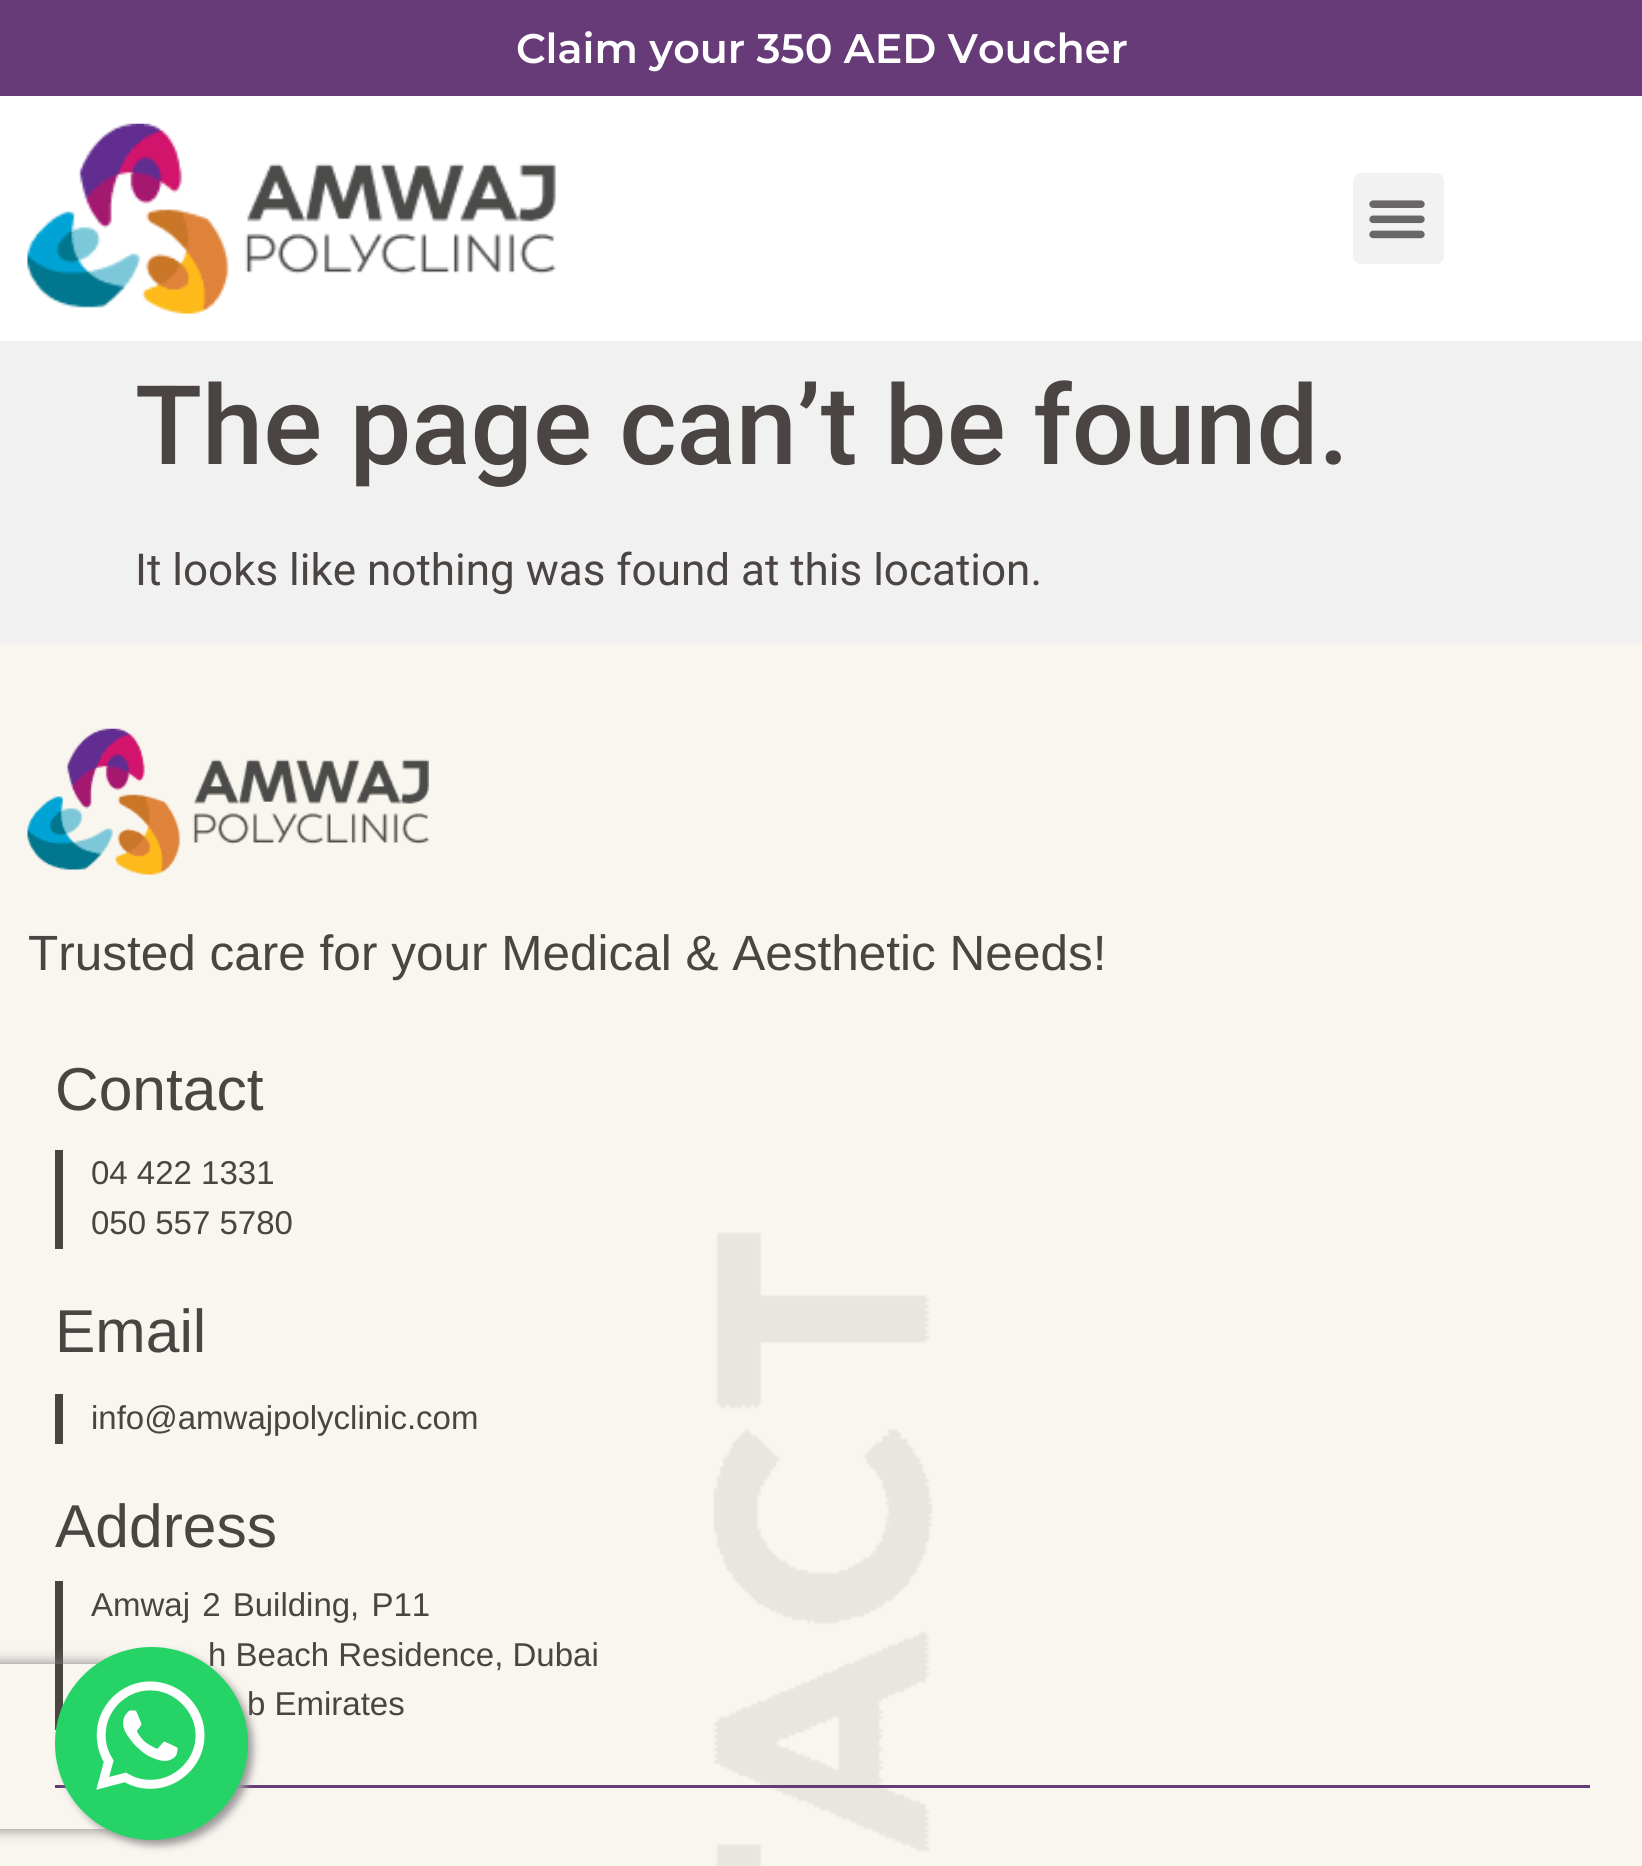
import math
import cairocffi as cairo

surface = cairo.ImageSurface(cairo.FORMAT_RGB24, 1642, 1866)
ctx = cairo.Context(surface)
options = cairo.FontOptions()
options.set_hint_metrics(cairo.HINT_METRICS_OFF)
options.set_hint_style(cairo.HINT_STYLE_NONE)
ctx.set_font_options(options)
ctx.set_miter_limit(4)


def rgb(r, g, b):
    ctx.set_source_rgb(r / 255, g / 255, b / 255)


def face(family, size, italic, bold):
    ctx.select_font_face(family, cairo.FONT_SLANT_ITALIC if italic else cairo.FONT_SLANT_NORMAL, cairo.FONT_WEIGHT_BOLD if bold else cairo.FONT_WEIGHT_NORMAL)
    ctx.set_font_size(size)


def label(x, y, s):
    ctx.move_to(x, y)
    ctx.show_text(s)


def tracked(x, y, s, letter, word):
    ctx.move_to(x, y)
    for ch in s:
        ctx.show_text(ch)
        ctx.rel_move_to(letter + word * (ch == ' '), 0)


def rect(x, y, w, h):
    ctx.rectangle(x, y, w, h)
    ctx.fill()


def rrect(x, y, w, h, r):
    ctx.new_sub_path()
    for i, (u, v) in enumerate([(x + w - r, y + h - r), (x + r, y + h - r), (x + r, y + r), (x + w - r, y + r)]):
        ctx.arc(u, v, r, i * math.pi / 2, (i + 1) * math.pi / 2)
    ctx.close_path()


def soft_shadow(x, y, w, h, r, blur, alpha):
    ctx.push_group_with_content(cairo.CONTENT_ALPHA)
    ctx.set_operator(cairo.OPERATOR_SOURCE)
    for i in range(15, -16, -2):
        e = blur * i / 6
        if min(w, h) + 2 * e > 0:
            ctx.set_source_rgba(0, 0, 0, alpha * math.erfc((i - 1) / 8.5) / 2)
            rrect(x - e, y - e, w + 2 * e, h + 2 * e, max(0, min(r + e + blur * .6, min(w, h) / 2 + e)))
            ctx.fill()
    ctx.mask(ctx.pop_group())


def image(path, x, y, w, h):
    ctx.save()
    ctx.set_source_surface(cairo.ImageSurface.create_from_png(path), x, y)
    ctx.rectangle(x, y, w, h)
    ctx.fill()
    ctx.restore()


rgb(241, 241, 241)
ctx.paint()
rgb(103, 59, 119)
rect(0, 0, 1642, 96)
face('Montserrat SemiBold', 41.25, 0, 0)
rgb(255, 255, 255)
label(516, 63, 'Claim your 350 AED Voucher')
rect(0, 96, 1642, 245)
image('image0.png', 27, 123, 529, 191)
rgb(242, 242, 242)
rrect(1353, 173, 91, 91, 8)
ctx.fill()
image('image1.png', 1369, 200, 56, 39)
face('Roboto Medium', 110, 0, 0)
rgb(74, 68, 66)
label(135, 464, 'The page can’t be found.')
face('Roboto', 44, 0, 0)
label(135, 585, 'It looks like nothing was found at this location.')
image('image2.png', 0, 643, 1642, 1223)
image('image3.png', 27, 728, 402, 147)
face('Liberation Sans', 49.5, 0, 0)
label(28, 970, 'Trusted care for your Medical & Aesthetic Needs!')
face('Liberation Sans', 60.5, 0, 0)
label(55, 1110, 'Contact')
rect(55, 1150, 8, 99)
face('Liberation Sans', 33, 0, 0)
label(91, 1184, '04 422 1331')
label(91, 1234, '050 557 5780')
face('Liberation Sans', 60.5, 0, 0)
label(55, 1352, 'Email')
rect(55, 1394, 8, 50)
face('Liberation Sans', 33, 0, 0)
label(91, 1429, 'info@amwajpolyclinic.com')
face('Liberation Sans', 60.5, 0, 0)
label(55, 1547, 'Address')
rect(55, 1581, 8, 149)
face('Liberation Sans', 33, 0, 0)
tracked(91, 1616, 'Amwaj 2 Building, P11', 0, 3)
label(208, 1666, 'h Beach Residence, Dubai')
label(247, 1715, 'b Emirates')
rgb(103, 59, 119)
rect(55, 1785, 1535, 3)
ctx.save()
ctx.set_fill_rule(cairo.FILL_RULE_EVEN_ODD)
ctx.new_path()
ctx.move_to(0, 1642)
ctx.line_to(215, 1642)
ctx.line_to(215, 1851)
ctx.line_to(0, 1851)
ctx.close_path()
ctx.move_to(-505, 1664)
ctx.line_to(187, 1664)
ctx.curve_to(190.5, 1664, 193, 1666.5, 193, 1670)
ctx.line_to(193, 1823)
ctx.curve_to(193, 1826.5, 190.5, 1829, 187, 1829)
ctx.line_to(-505, 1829)
ctx.curve_to(-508.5, 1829, -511, 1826.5, -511, 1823)
ctx.line_to(-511, 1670)
ctx.curve_to(-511, 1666.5, -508.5, 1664, -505, 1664)
ctx.close_path()
ctx.clip()
rgb(128, 128, 128)
soft_shadow(-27, 1664, 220, 165, 6, 7, 1)
ctx.restore()
rgb(153, 153, 153)
soft_shadow(61, 1653, 192, 192, 96, 4, 1)
rgb(37, 211, 102)
ctx.arc(151.5, 1743.5, 96.5, 0, 2 * math.pi)
ctx.fill()
image('image4.png', 96, 1681, 109, 109)
surface.write_to_png('render.png')
